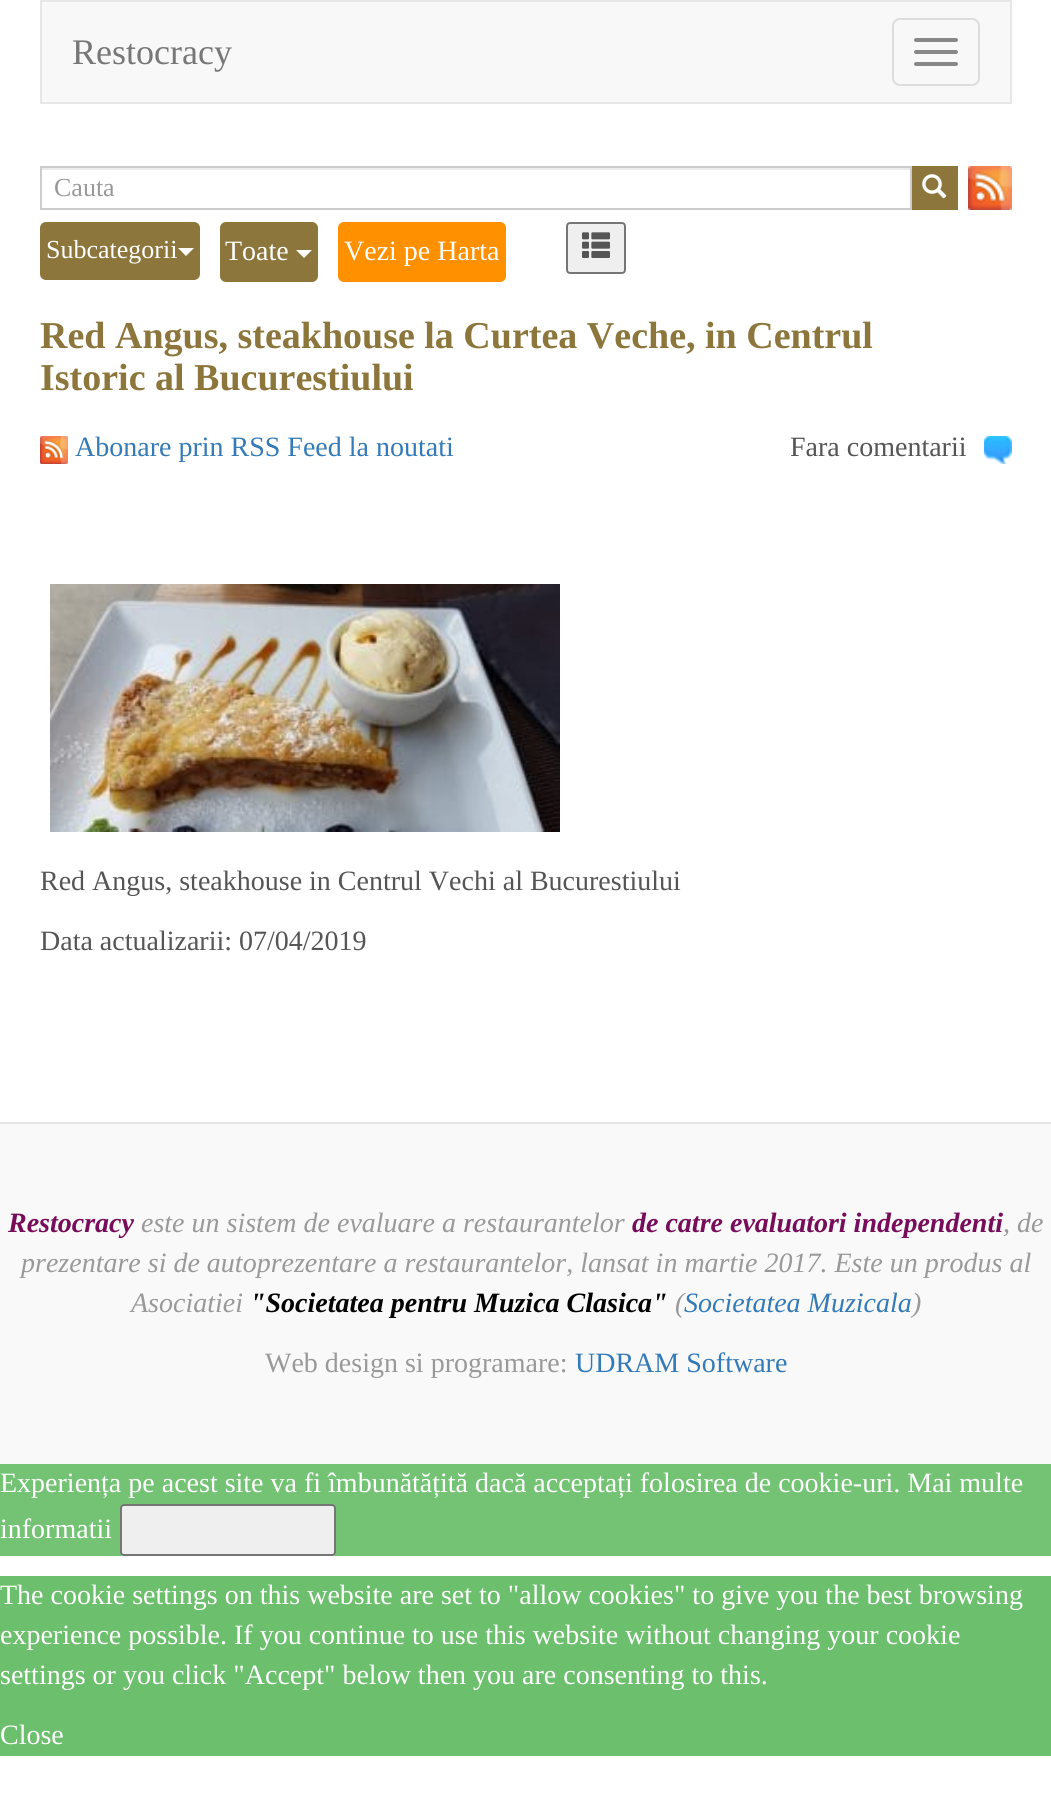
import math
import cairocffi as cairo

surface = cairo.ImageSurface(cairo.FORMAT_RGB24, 1051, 1807)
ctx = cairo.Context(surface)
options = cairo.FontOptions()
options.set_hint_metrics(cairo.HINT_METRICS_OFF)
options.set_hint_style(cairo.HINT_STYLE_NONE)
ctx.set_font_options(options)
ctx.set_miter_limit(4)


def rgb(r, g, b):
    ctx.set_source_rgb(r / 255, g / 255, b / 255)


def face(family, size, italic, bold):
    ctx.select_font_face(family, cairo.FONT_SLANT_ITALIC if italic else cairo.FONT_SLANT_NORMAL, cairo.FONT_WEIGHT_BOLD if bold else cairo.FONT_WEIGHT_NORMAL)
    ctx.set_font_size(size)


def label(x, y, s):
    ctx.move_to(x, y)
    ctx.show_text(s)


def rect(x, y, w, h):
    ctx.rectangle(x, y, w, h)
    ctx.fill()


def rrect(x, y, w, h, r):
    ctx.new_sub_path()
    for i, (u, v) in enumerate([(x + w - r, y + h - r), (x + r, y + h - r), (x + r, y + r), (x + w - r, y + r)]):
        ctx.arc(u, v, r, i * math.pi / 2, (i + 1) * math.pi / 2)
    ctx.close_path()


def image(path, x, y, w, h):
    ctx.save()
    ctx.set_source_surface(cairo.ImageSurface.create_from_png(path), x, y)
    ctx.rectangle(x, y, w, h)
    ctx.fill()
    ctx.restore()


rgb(255, 255, 255)
ctx.paint()
rgb(248, 248, 248)
ctx.rectangle(41, 1, 970, 102)
ctx.fill_preserve()
rgb(231, 231, 231)
ctx.stroke()
face('Liberation Serif', 36, 0, 0)
rgb(119, 119, 119)
label(72, 64, 'Restocracy')
rrect(893, 19, 86, 66, 7)
rgb(221, 221, 221)
ctx.stroke()
rgb(136, 136, 136)
rrect(914, 38, 44, 4, 2)
ctx.fill()
rrect(914, 50, 44, 4, 2)
ctx.fill()
rrect(914, 62, 44, 4, 2)
ctx.fill()
rgb(236, 236, 236)
rect(42, 168, 868, 2)
ctx.rectangle(41, 167, 870, 42)
rgb(204, 204, 204)
ctx.stroke()
face('Liberation Serif', 26, 0, 0)
rgb(153, 153, 153)
label(54, 196, 'Cauta')
rgb(140, 118, 60)
rect(912, 166, 46, 44)
image('image0.png', 922, 174, 25, 25)
image('image1.png', 968, 166, 44, 44)
rrect(40, 222, 160, 58, 6)
ctx.fill()
rgb(255, 255, 255)
label(46, 258, 'Subcategorii')
ctx.new_path()
ctx.move_to(178, 248)
ctx.line_to(194, 248)
ctx.line_to(186, 256)
ctx.close_path()
ctx.fill()
rgb(140, 118, 60)
rrect(220, 222, 98, 60, 6)
ctx.fill()
face('Liberation Serif', 28, 0, 0)
rgb(255, 255, 255)
label(225, 260, 'Toate')
ctx.new_path()
ctx.move_to(296, 250)
ctx.line_to(312, 250)
ctx.line_to(304, 258)
ctx.close_path()
ctx.fill()
rgb(255, 144, 0)
rrect(338, 222, 168, 60, 6)
ctx.fill()
rgb(255, 255, 255)
label(344, 260, 'Vezi pe Harta')
rgb(239, 239, 239)
rrect(567, 223, 58, 50, 3)
ctx.fill_preserve()
rgb(118, 118, 118)
ctx.stroke()
image('image2.png', 582, 232, 28, 26)
face('Liberation Serif', 38, 0, 1)
rgb(140, 118, 60)
label(40, 348, 'Red Angus, steakhouse la Curtea Veche, in Centrul')
label(40, 390, 'Istoric al Bucurestiului')
image('image3.png', 40, 436, 28, 28)
face('Liberation Serif', 28, 0, 0)
rgb(51, 122, 183)
label(75, 456, 'Abonare prin RSS Feed la noutati')
rgb(85, 85, 85)
label(790, 456, 'Fara comentarii')
image('image4.png', 984, 436, 28, 28)
image('image5.png', 50, 584, 510, 248)
label(40, 890, 'Red Angus, steakhouse in Centrul Vechi al Bucurestiului')
label(40, 950, 'Data actualizarii: 07/04/2019')
rgb(249, 249, 249)
rect(0, 1124, 1051, 340)
rgb(229, 229, 229)
rect(0, 1122, 1051, 2)
face('Liberation Serif', 28, 1, 1)
rgb(119, 12, 90)
label(8, 1232, 'Restocracy')
face('Liberation Serif', 28, 1, 0)
rgb(153, 153, 153)
label(141, 1232, 'este un sistem de evaluare a restaurantelor')
face('Liberation Serif', 28, 1, 1)
rgb(119, 12, 90)
label(632, 1232, 'de catre evaluatori independenti')
face('Liberation Serif', 28, 1, 0)
rgb(153, 153, 153)
label(1003, 1232, ', de')
label(21, 1272, 'prezentare si de autoprezentare a restaurantelor, lansat in martie 2017. Este un produs al')
label(131, 1312, 'Asociatiei')
face('Liberation Serif', 28, 1, 1)
rgb(0, 0, 0)
label(250, 1312, '"Societatea pentru Muzica Clasica"')
face('Liberation Serif', 28, 1, 0)
rgb(153, 153, 153)
label(675, 1312, '(')
rgb(51, 122, 183)
label(684, 1312, 'Societatea Muzicala')
rgb(153, 153, 153)
label(912, 1312, ')')
face('Liberation Serif', 28, 0, 0)
label(265, 1372, 'Web design si programare:')
rgb(51, 122, 183)
label(575, 1372, 'UDRAM Software')
rgb(116, 195, 116)
rect(0, 1464, 1051, 92)
rgb(255, 255, 255)
label(0, 1492, 'Experiența pe acest site va fi îmbunătățită dacă acceptați folosirea de cookie-uri. Mai multe')
label(0, 1538, 'informatii')
rgb(239, 239, 239)
rrect(121, 1505, 214, 50, 3)
ctx.fill_preserve()
rgb(118, 118, 118)
ctx.stroke()
rgb(108, 191, 108)
rect(0, 1576, 1051, 180)
rgb(255, 255, 255)
label(0, 1604, 'The cookie settings on this website are set to "allow cookies" to give you the best browsing')
label(0, 1644, 'experience possible. If you continue to use this website without changing your cookie')
label(0, 1684, 'settings or you click "Accept" below then you are consenting to this.')
label(0, 1744, 'Close')
surface.write_to_png('render.png')
